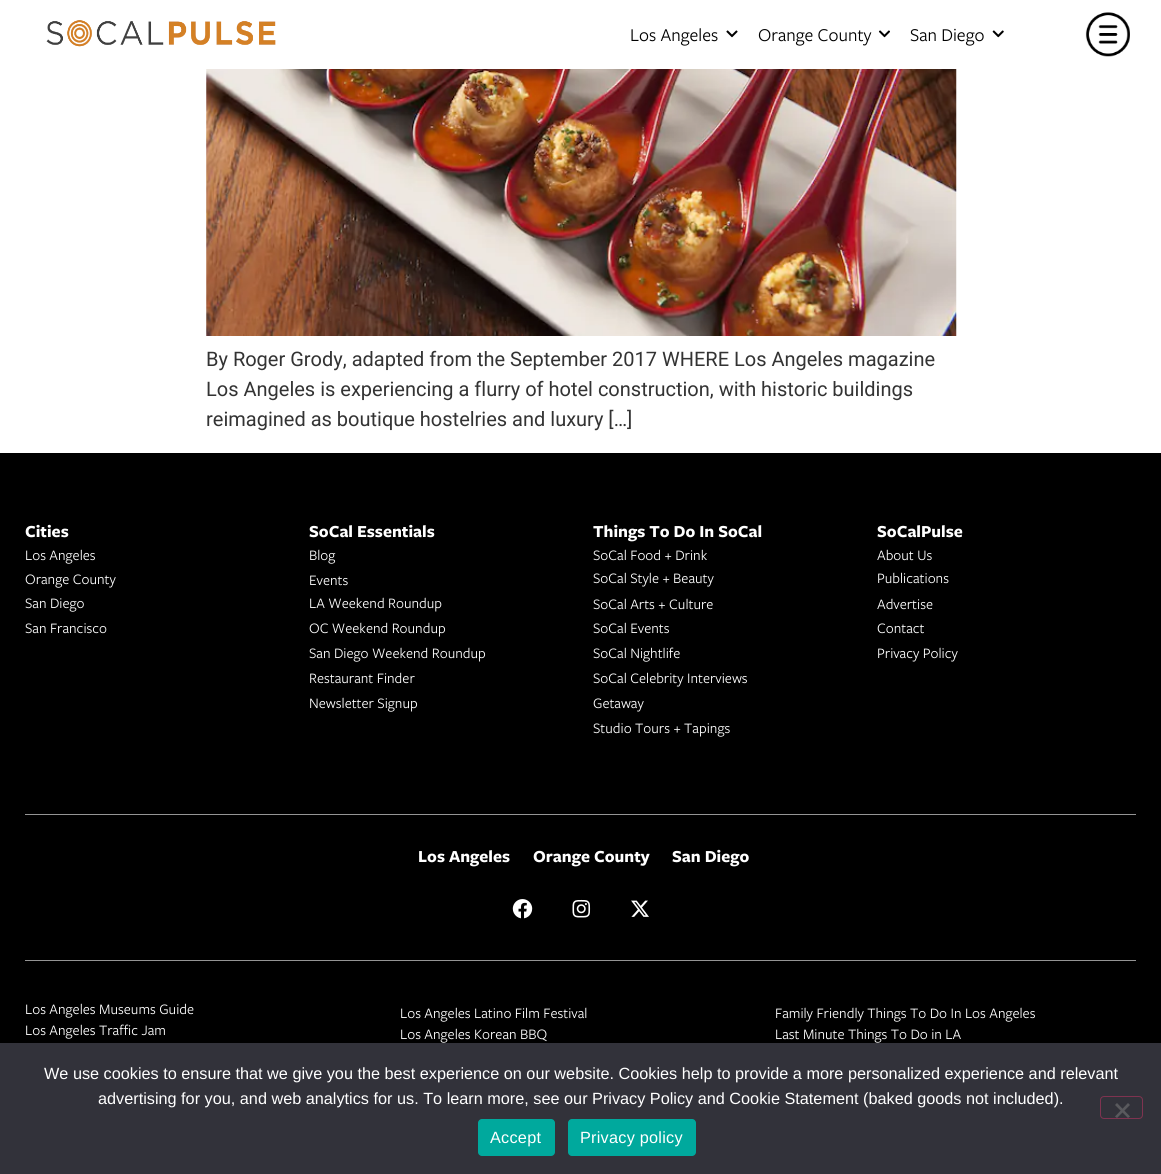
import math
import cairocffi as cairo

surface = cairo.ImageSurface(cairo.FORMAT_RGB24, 1161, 1174)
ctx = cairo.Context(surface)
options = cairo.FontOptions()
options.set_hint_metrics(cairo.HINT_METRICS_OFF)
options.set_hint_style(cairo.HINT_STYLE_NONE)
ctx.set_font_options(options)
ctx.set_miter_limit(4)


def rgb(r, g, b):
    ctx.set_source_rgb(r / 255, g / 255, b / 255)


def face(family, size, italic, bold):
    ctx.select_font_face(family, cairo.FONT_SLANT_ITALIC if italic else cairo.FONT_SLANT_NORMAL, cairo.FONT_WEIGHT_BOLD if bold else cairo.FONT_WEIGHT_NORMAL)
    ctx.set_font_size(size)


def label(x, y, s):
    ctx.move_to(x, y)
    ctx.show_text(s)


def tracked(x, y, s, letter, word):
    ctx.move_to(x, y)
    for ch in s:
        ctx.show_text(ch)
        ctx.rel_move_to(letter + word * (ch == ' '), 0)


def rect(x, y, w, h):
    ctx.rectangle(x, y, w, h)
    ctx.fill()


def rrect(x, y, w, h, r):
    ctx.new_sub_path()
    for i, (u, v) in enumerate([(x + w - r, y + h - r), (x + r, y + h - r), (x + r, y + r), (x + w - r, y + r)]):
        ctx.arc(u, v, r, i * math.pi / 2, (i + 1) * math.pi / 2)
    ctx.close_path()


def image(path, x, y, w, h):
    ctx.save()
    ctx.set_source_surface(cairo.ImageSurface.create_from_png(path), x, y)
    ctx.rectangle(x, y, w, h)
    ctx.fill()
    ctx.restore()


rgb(255, 255, 255)
ctx.paint()
image('image0.png', 46, 20, 230, 27)
face('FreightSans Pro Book', 18.75, 0, 0)
rgb(0, 0, 0)
label(630, 41, 'Los Angeles')
image('image1.png', 726, 30, 12, 8)
label(758, 41, 'Orange County')
image('image2.png', 878, 30, 12, 8)
label(910, 41, 'San Diego')
image('image3.png', 992, 30, 12, 8)
image('image4.png', 1085, 12, 45, 45)
image('image5.png', 206, 69, 751, 267)
face('Roboto', 20, 0, 0)
rgb(51, 51, 51)
label(206, 366, 'By Roger Grody, adapted from the September 2017 WHERE Los Angeles magazine')
label(206, 396, 'Los Angeles is experiencing a flurry of hotel construction, with historic buildings')
label(206, 426, 'reimagined as boutique hostelries and luxury […]')
rgb(0, 0, 0)
rect(0, 453, 1161, 590)
face('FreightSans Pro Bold', 17.5, 0, 1)
rgb(255, 255, 255)
label(25, 537, 'Cities')
face('FreightSans Pro Book', 15, 0, 0)
label(25, 560, 'Los Angeles')
label(25, 584, 'Orange County')
label(25, 608, 'San Diego')
label(25, 633, 'San Francisco')
face('FreightSans Pro Bold', 17.5, 0, 1)
label(309, 537, 'SoCal Essentials')
face('FreightSans Pro Book', 15, 0, 0)
label(309, 560, 'Blog')
label(309, 585, 'Events')
label(309, 608, 'LA Weekend Roundup')
label(309, 633, 'OC Weekend Roundup')
label(309, 658, 'San Diego Weekend Roundup')
label(309, 683, 'Restaurant Finder')
label(309, 708, 'Newsletter Signup')
face('FreightSans Pro Bold', 17.5, 0, 1)
label(593, 537, 'Things To Do In SoCal')
face('FreightSans Pro Book', 15, 0, 0)
label(593, 560, 'SoCal Food + Drink')
label(593, 583, 'SoCal Style + Beauty')
label(593, 609, 'SoCal Arts + Culture')
label(593, 633, 'SoCal Events')
label(593, 658, 'SoCal Nightlife')
label(593, 683, 'SoCal Celebrity Interviews')
label(593, 708, 'Getaway')
label(593, 733, 'Studio Tours + Tapings')
face('FreightSans Pro Bold', 17.5, 0, 1)
label(877, 537, 'SoCalPulse')
face('FreightSans Pro Book', 15, 0, 0)
label(877, 560, 'About Us')
label(877, 583, 'Publications')
label(877, 609, 'Advertise')
label(877, 633, 'Contact')
label(877, 658, 'Privacy Policy')
rgb(148, 148, 148)
rect(25, 814, 1111, 1)
face('FreightSans Pro Bold', 17.5, 0, 1)
rgb(255, 255, 255)
label(418, 862, 'Los Angeles')
label(533, 862, 'Orange County')
label(672, 862, 'San Diego')
image('image6.png', 512, 899, 21, 20)
image('image7.png', 572, 899, 19, 19)
image('image8.png', 631, 900, 18, 17)
rgb(148, 148, 148)
rect(25, 960, 1111, 1)
face('FreightSans Pro Book', 15, 0, 0)
rgb(255, 255, 255)
label(25, 1014, 'Los Angeles Museums Guide')
label(25, 1035, 'Los Angeles Traffic Jam')
label(400, 1018, 'Los Angeles Latino Film Festival')
label(400, 1039, 'Los Angeles Korean BBQ')
label(775, 1018, 'Family Friendly Things To Do In Los Angeles')
label(775, 1039, 'Last Minute Things To Do in LA')
rgb(50, 50, 58)
rect(0, 1043, 1161, 131)
face('Liberation Sans', 16.25, 0, 0)
rgb(255, 255, 255)
label(44, 1079, 'We use cookies to ensure that we give you the best experience on our website. Cookies help to provide a more personalized experience and relevant')
label(98, 1104, 'advertising for you, and web analytics for us. To learn more, see our Privacy Policy and Cookie Statement (baked goods not included).')
rrect(1100.5, 1096.5, 42, 22, 3.5)
rgb(127, 51, 80)
ctx.set_line_width(1)
ctx.stroke()
rgb(89, 89, 93)
ctx.new_path()
ctx.move_to(1128, 1103)
ctx.line_to(1130, 1105)
ctx.line_to(1117, 1118)
ctx.line_to(1115, 1116.5)
ctx.close_path()
ctx.fill()
ctx.new_path()
ctx.move_to(1115, 1105)
ctx.line_to(1117, 1103)
ctx.line_to(1130, 1116.5)
ctx.line_to(1128, 1118)
ctx.close_path()
ctx.fill()
rgb(0, 169, 157)
rrect(478, 1119, 77, 37, 4)
ctx.fill()
rgb(255, 255, 255)
tracked(490, 1143, 'Accept', 0.25, 0)
rgb(0, 169, 157)
rrect(568, 1119, 128, 37, 4)
ctx.fill()
rgb(255, 255, 255)
tracked(580, 1143, 'Privacy policy', 0.25, 0)
surface.write_to_png('render.png')
